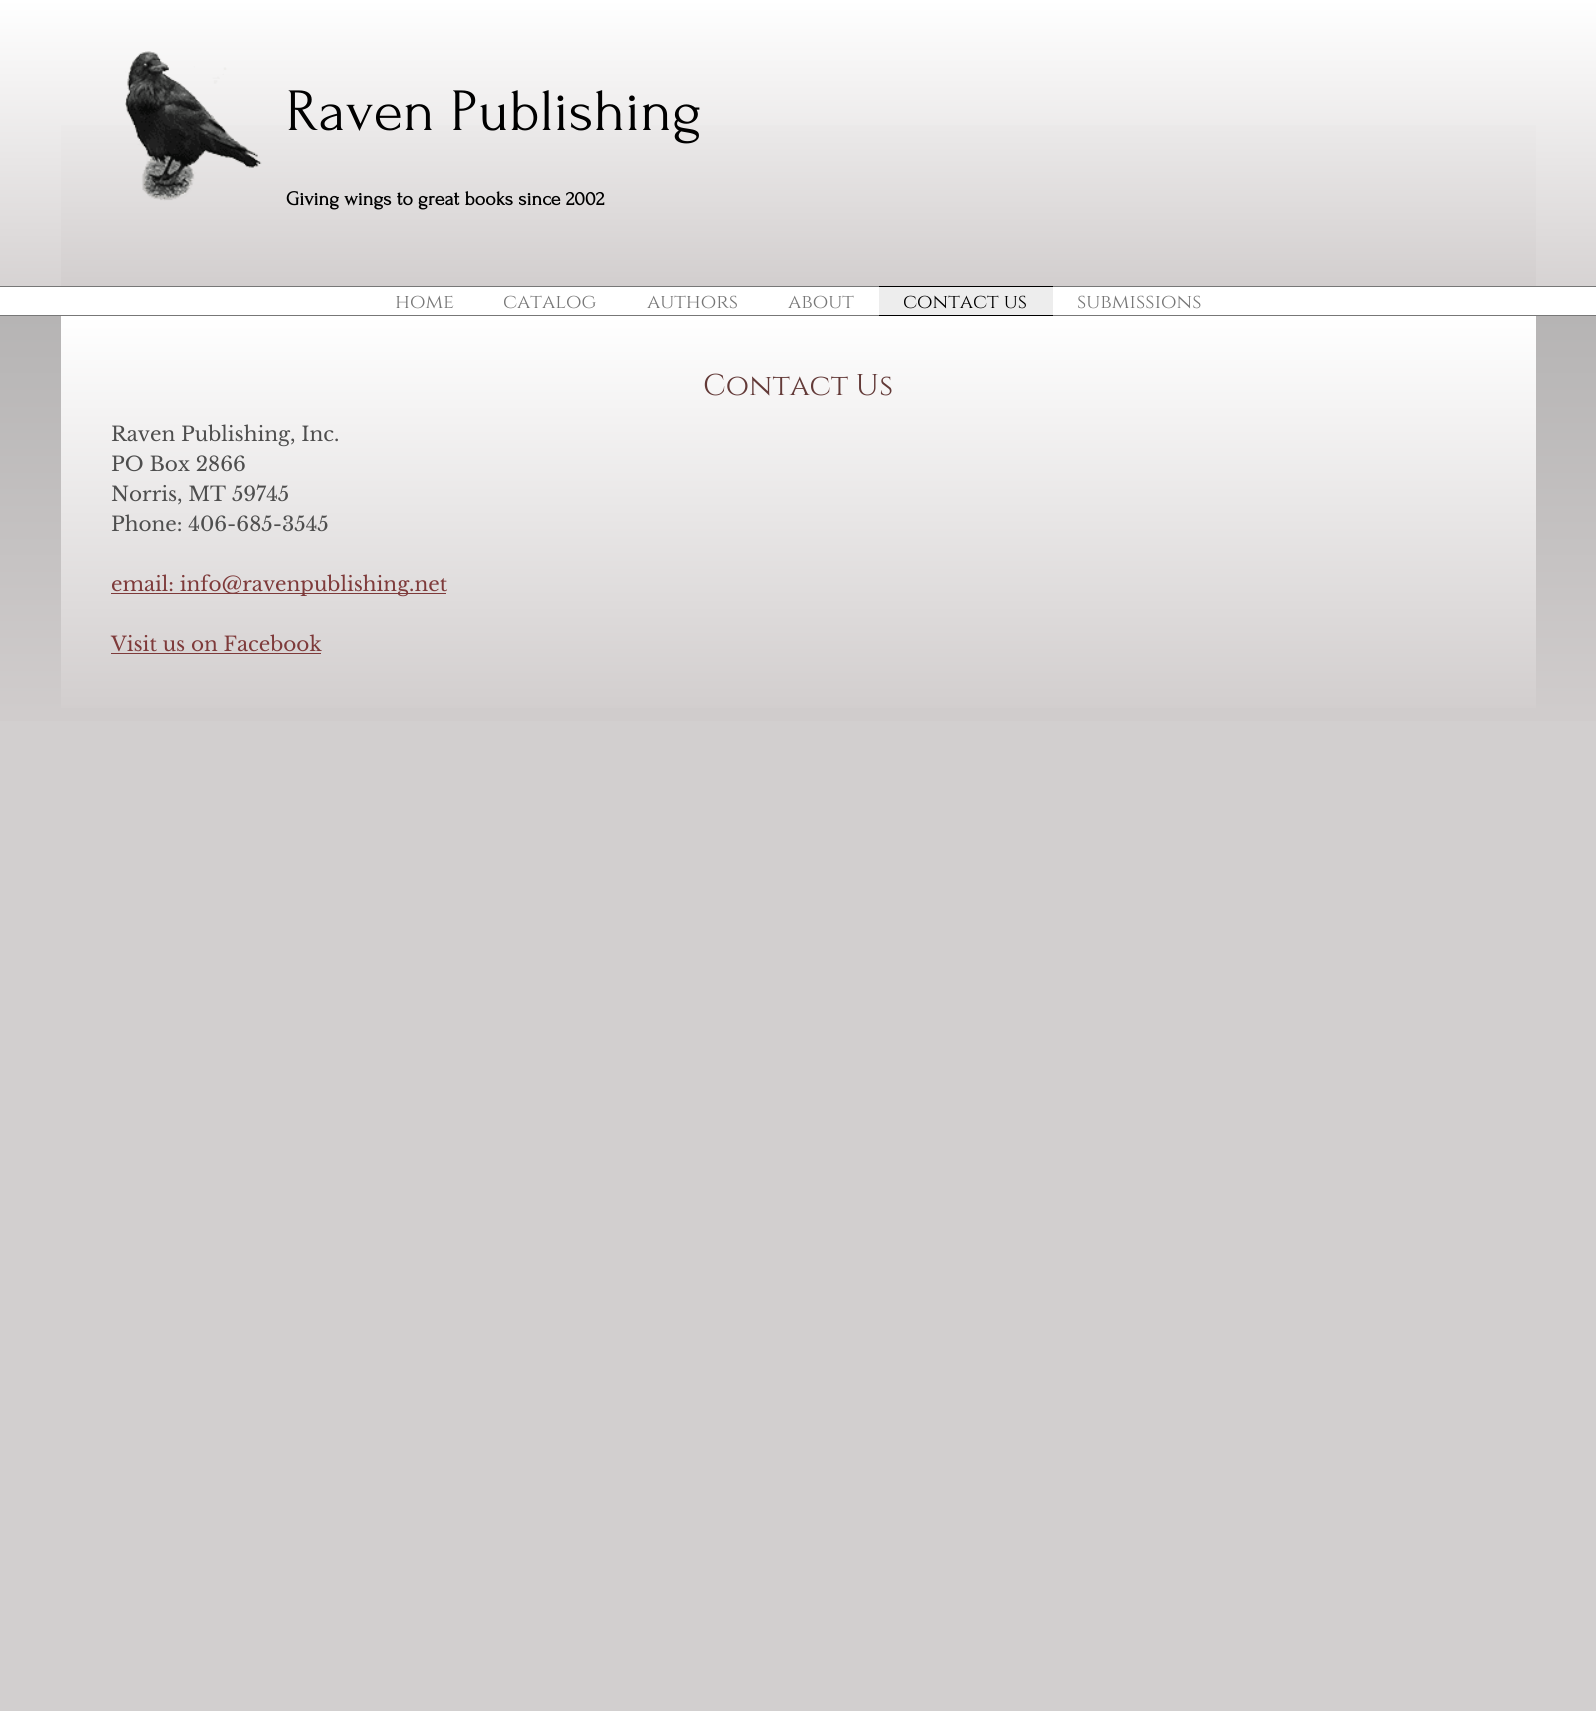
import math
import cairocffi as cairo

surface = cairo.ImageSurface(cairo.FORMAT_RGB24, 1596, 1711)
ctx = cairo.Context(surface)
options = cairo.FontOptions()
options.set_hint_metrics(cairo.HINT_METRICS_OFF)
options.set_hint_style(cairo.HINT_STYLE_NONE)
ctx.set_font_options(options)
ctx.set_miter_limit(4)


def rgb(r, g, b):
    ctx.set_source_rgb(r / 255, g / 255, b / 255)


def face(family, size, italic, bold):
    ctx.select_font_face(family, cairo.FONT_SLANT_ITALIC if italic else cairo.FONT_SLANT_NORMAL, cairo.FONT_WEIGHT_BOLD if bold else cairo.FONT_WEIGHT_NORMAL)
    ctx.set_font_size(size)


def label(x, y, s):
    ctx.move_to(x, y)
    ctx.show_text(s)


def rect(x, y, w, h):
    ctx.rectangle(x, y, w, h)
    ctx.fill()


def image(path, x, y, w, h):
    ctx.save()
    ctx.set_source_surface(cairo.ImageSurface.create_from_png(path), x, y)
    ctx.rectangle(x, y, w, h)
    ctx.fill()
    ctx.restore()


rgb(210, 207, 207)
ctx.paint()
gradient = cairo.LinearGradient(798, 746, 798, 0)
gradient.add_color_stop_rgba(0, 0.824, 0.808, 0.808, 1)
gradient.add_color_stop_rgba(1, 0.631, 0.631, 0.631, 1)
ctx.set_source(gradient)
rect(0, 316, 1596, 405)
gradient = cairo.LinearGradient(798, 316, 798, 0)
gradient.add_color_stop_rgba(0, 0.824, 0.808, 0.808, 1)
gradient.add_color_stop_rgba(1, 1, 1, 1, 1)
ctx.set_source(gradient)
rect(0, 0, 1596, 286)
gradient = cairo.LinearGradient(799, 286, 799, 0)
gradient.add_color_stop_rgba(0, 0.824, 0.808, 0.808, 1)
gradient.add_color_stop_rgba(1, 1, 1, 1, 1)
ctx.set_source(gradient)
rect(61, 125, 1475, 161)
image('image0.png', 125, 51, 137, 150)
face('Forum', 60, 0, 0)
rgb(0, 0, 0)
label(286, 130, 'Raven Publishing')
face('Forum', 20, 0, 1)
label(286, 205, 'Giving wings to great books since 2002')
rgb(255, 255, 255)
rect(0, 287, 1596, 28)
rgb(119, 119, 119)
rect(0, 286, 1596, 1)
rect(0, 315, 1596, 1)
face('Cinzel', 20, 0, 0)
label(395, 308, 'home')
label(503, 308, 'catalog')
label(647, 308, 'authors')
label(788, 308, 'about')
rgb(237, 237, 237)
rect(879, 287, 174, 28)
rgb(0, 0, 0)
rect(879, 286, 174, 1)
rect(879, 315, 174, 1)
label(903, 308, 'contact us')
rgb(119, 119, 119)
label(1077, 308, 'submissions')
gradient = cairo.LinearGradient(799, 709, 799, 316)
gradient.add_color_stop_rgba(0, 0.824, 0.808, 0.808, 1)
gradient.add_color_stop_rgba(1, 1, 1, 1, 1)
ctx.set_source(gradient)
rect(61, 316, 1475, 392)
face('Cinzel', 30, 0, 0)
rgb(99, 58, 56)
label(703, 395, 'Contact Us')
face('Libre Baskerville', 20, 0, 0)
rgb(78, 78, 78)
label(111, 441, 'Raven Publishing, Inc.')
label(111, 471, 'PO Box 2866')
label(111, 501, 'Norris, MT 59745')
label(111, 531, 'Phone: 406-685-3545')
rgb(126, 58, 58)
rect(111, 593, 335, 1)
label(111, 591, 'email: info@ravenpublishing.net')
label(111, 651, 'Visit us on Facebook')
rect(111, 653, 210, 1)
surface.write_to_png('render.png')
